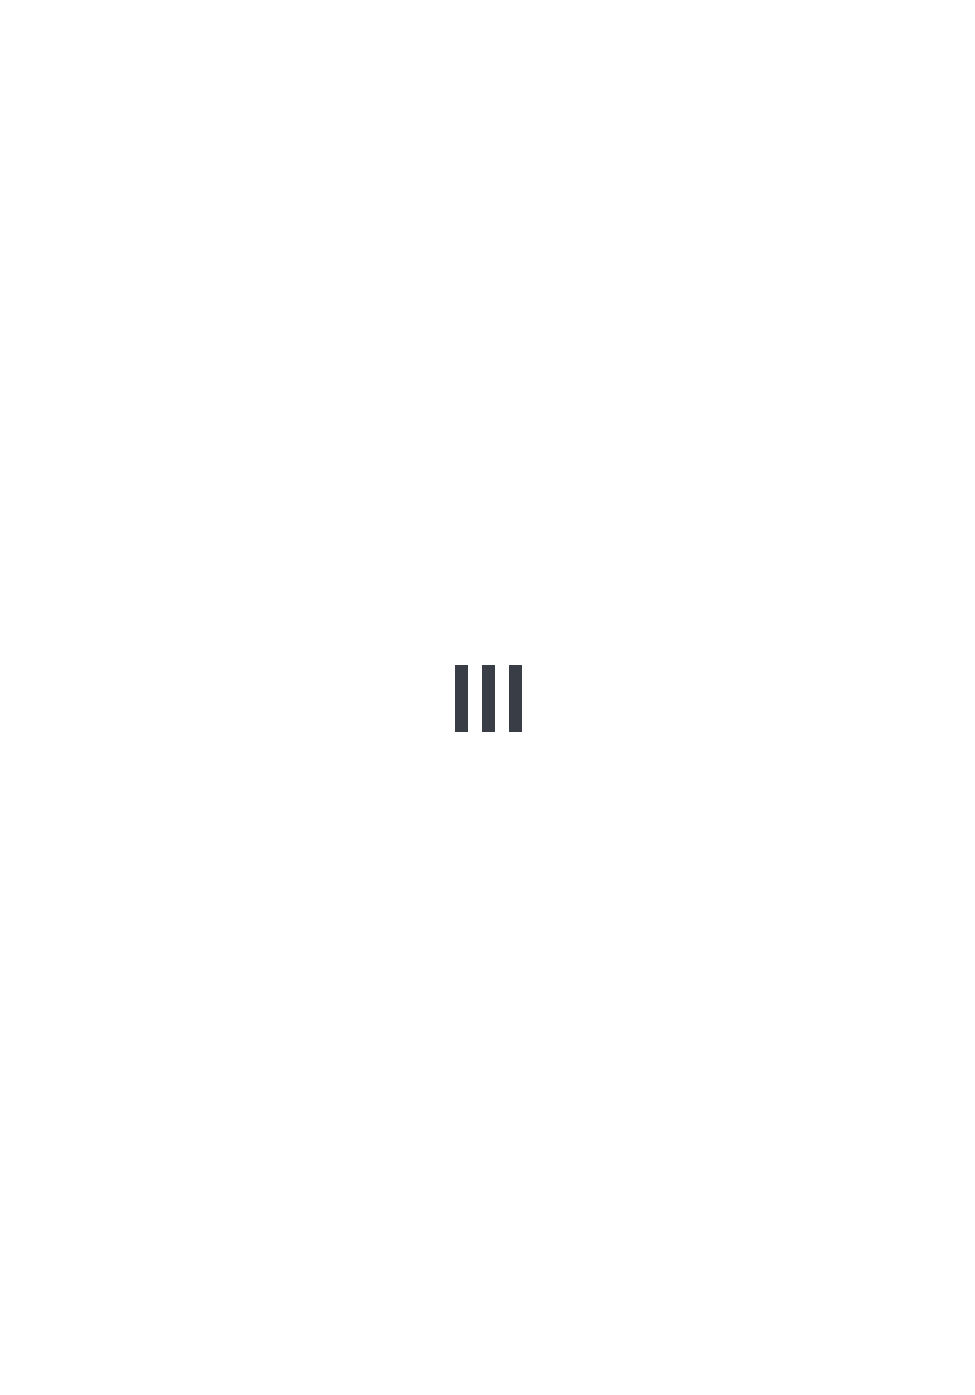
import math
import cairocffi as cairo

surface = cairo.ImageSurface(cairo.FORMAT_RGB24, 975, 1395)
ctx = cairo.Context(surface)
options = cairo.FontOptions()
options.set_hint_metrics(cairo.HINT_METRICS_OFF)
options.set_hint_style(cairo.HINT_STYLE_NONE)
ctx.set_font_options(options)
ctx.set_miter_limit(4)


def rgb(r, g, b):
    ctx.set_source_rgb(r / 255, g / 255, b / 255)


def rect(x, y, w, h):
    ctx.rectangle(x, y, w, h)
    ctx.fill()


rgb(255, 255, 255)
ctx.paint()
gradient = cairo.LinearGradient(515, 567, 515, 732)
gradient.add_color_stop_rgba(0.41, 0.243, 0.392, 1, 1)
gradient.add_color_stop_rgba(0.41, 1, 1, 1, 1)
gradient.add_color_stop_rgba(0.59, 1, 1, 1, 1)
gradient.add_color_stop_rgba(0.59, 0.224, 0.243, 0.275, 1)
ctx.set_source(gradient)
rect(509, 665, 13, 67)
gradient = cairo.LinearGradient(488, 567, 488, 732)
gradient.add_color_stop_rgba(0.41, 0.243, 0.392, 1, 1)
gradient.add_color_stop_rgba(0.41, 1, 1, 1, 1)
gradient.add_color_stop_rgba(0.59, 1, 1, 1, 1)
gradient.add_color_stop_rgba(0.59, 0.224, 0.243, 0.275, 1)
ctx.set_source(gradient)
rect(482, 665, 13, 67)
gradient = cairo.LinearGradient(461, 567, 461, 732)
gradient.add_color_stop_rgba(0.41, 0.243, 0.392, 1, 1)
gradient.add_color_stop_rgba(0.41, 1, 1, 1, 1)
gradient.add_color_stop_rgba(0.59, 1, 1, 1, 1)
gradient.add_color_stop_rgba(0.59, 0.224, 0.243, 0.275, 1)
ctx.set_source(gradient)
rect(455, 665, 13, 67)
surface.write_to_png('render.png')
